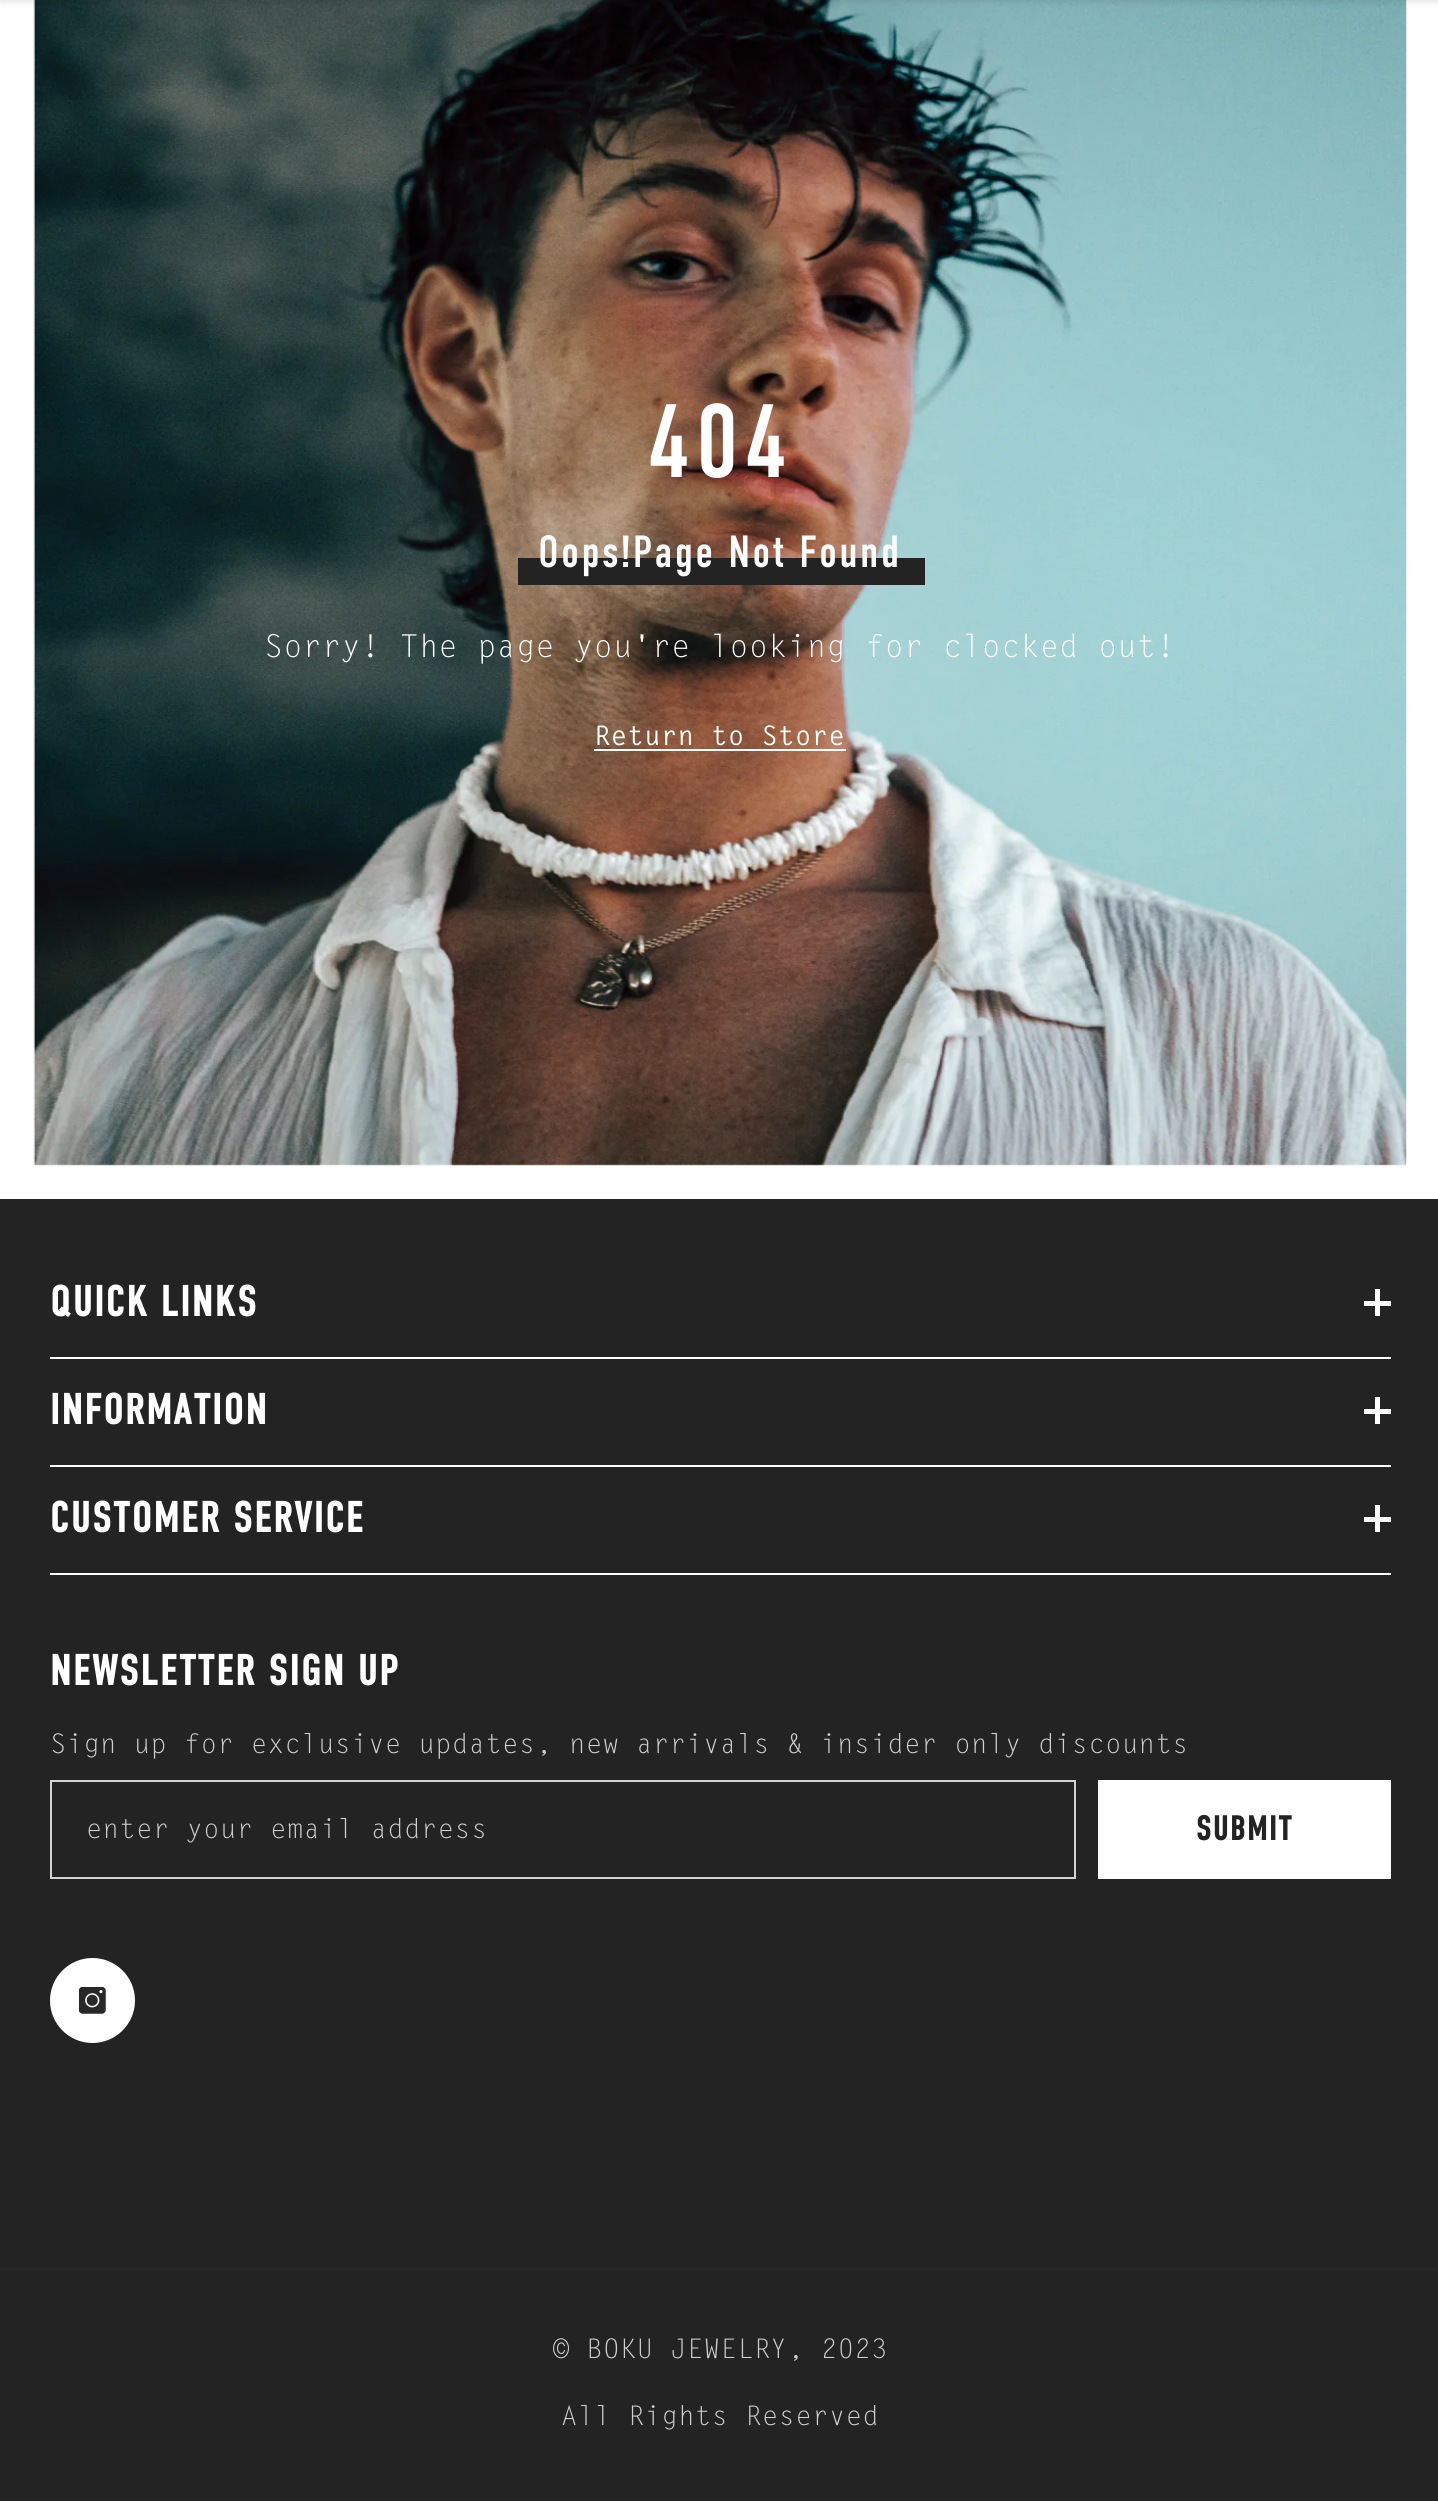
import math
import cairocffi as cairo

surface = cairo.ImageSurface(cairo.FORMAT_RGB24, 1438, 2501)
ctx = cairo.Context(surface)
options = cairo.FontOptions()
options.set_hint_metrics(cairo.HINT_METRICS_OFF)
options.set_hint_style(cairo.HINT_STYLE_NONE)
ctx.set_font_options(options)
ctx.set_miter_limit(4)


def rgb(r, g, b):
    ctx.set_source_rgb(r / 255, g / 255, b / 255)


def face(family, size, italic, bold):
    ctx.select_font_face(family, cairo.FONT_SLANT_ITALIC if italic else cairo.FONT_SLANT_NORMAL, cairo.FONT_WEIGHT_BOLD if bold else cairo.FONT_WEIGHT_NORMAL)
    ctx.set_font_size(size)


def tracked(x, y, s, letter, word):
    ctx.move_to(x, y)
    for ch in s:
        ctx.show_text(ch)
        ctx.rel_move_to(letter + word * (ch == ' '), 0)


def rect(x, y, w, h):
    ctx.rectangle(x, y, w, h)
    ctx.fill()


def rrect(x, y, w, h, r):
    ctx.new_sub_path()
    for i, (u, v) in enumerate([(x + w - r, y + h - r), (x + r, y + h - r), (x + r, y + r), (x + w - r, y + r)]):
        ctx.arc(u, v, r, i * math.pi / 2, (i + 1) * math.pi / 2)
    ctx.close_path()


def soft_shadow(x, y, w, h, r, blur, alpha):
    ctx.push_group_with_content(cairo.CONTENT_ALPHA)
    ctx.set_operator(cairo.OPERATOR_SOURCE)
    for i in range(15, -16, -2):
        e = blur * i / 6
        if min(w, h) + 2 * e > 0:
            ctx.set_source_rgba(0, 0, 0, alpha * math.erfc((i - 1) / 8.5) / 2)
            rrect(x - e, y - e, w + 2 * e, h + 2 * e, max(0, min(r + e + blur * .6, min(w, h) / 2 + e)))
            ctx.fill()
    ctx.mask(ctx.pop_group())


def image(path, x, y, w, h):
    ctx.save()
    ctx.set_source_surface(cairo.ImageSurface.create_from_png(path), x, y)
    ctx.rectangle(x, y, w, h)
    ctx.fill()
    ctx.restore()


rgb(255, 255, 255)
ctx.paint()
image('image0.png', 33, 0, 1374, 1166)
rgb(0, 0, 0)
soft_shadow(0, -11, 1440, 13, 0, 3.5, 0.1)
face('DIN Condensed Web', 104, 0, 0)
rgb(255, 255, 255)
tracked(647, 477, '404', 5, 0)
rgb(35, 35, 35)
rect(518, 558, 407, 27)
face('DIN Condensed Web', 45, 0, 0)
rgb(255, 255, 255)
tracked(538, 567, 'Oops!Page Not Found', 2.25, 0)
face('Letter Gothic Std', 31.5, 0, 0)
tracked(264, 657, 'Sorry! The page you\'re looking for clocked out!', 0.5, 0)
face('Letter Gothic Std', 27, 0, 1)
tracked(594, 745, 'Return to Store', 0.55, 0)
rect(594, 749, 252, 2)
rgb(35, 35, 35)
rect(0, 1199, 1438, 1069)
rgb(255, 255, 255)
rect(50, 1357, 1341, 2)
face('DIN Condensed Web', 42.75, 0, 1)
tracked(50, 1316, 'QUICK LINKS', 2.1, 0)
rect(1375, 1289, 5, 27)
rect(1364, 1301, 27, 5)
rect(50, 1465, 1341, 2)
tracked(50, 1424, 'INFORMATION', 2.1, 0)
rect(1375, 1397, 5, 27)
rect(1364, 1409, 27, 5)
rect(50, 1573, 1341, 2)
tracked(50, 1532, 'CUSTOMER SERVICE', 2.1, 0)
rect(1375, 1505, 5, 27)
rect(1364, 1517, 27, 5)
tracked(50, 1685, 'NEWSLETTER SIGN UP', 2.1, 0)
face('Letter Gothic Std', 27, 0, 0)
rgb(207, 207, 207)
tracked(50, 1753, 'Sign up for exclusive updates, new arrivals & insider only discounts', 0.55, 0)
ctx.rectangle(51, 1781, 1024, 97)
rgb(211, 211, 211)
ctx.stroke()
rgb(207, 207, 207)
tracked(86, 1838, 'enter your email address', 0.55, 0)
rgb(255, 255, 255)
rect(1098, 1780, 293, 99)
face('DIN Condensed Web', 34, 0, 1)
rgb(35, 35, 35)
tracked(1196, 1840, 'SUBMIT', 1.75, 0)
rgb(255, 255, 255)
ctx.new_path()
ctx.arc(92.5, 2000.5, 41.5, 0, 2 * math.pi)
ctx.fill_preserve()
ctx.stroke()
image('image1.png', 79, 1987, 27, 27)
rgb(35, 35, 35)
rect(0, 2270, 1438, 231)
rgb(40, 40, 40)
rect(0, 2268, 1438, 2)
face('Letter Gothic Std', 27, 0, 0)
rgb(207, 207, 207)
tracked(553, 2358, '© BOKU JEWELRY, 2023', 0.55, 0)
tracked(561, 2425, 'All Rights Reserved', 0.55, 0)
surface.write_to_png('render.png')
